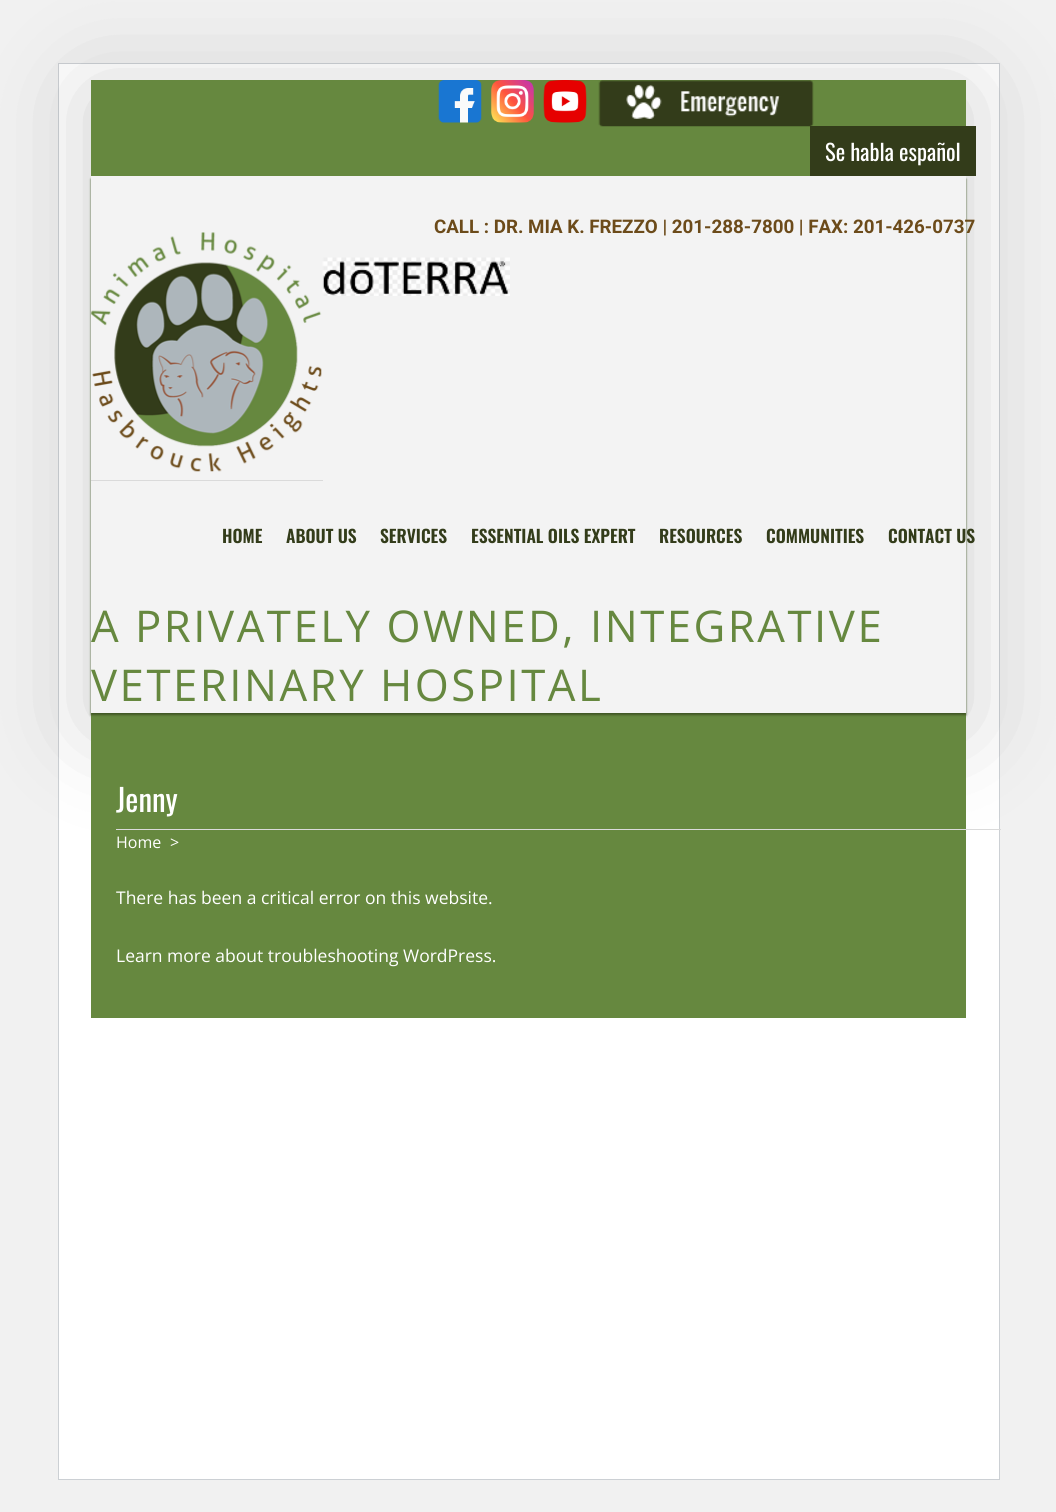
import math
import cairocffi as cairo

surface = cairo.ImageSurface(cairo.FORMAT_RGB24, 1056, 1512)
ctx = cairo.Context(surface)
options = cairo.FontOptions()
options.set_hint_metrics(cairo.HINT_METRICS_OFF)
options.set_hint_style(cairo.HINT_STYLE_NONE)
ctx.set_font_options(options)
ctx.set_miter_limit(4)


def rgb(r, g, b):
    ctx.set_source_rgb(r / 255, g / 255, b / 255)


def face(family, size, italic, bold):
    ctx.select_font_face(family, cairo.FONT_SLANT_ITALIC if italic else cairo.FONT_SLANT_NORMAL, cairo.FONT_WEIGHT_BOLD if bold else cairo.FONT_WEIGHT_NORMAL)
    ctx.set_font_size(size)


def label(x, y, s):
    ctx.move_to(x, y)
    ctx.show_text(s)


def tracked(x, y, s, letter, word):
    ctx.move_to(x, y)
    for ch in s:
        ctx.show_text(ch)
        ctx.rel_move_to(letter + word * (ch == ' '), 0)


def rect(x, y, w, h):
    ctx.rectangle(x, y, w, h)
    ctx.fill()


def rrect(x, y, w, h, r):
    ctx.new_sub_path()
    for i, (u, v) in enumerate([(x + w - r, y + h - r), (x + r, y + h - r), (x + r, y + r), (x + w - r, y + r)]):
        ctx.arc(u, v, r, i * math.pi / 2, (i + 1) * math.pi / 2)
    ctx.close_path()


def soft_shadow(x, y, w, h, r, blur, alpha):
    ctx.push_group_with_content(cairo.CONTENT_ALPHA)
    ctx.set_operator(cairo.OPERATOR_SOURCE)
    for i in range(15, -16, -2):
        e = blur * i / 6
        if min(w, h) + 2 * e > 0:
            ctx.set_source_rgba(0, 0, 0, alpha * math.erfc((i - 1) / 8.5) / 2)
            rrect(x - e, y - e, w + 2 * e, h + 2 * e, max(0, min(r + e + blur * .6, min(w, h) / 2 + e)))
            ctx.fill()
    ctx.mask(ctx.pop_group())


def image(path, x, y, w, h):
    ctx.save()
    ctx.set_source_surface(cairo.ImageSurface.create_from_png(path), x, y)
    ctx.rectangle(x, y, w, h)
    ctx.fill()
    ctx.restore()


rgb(241, 241, 241)
ctx.paint()
rgb(255, 255, 255)
ctx.rectangle(58.5, 63.5, 941, 1416)
ctx.fill_preserve()
rgb(204, 208, 212)
ctx.set_line_width(1)
ctx.stroke()
rgb(0, 0, 0)
soft_shadow(91, 93, 875, 632, 0, 50, 0.2)
rgb(102, 136, 63)
rect(91, 80, 875, 96)
image('image0.png', 438, 80, 44, 43)
image('image1.png', 491, 80, 43, 43)
image('image2.png', 543, 80, 44, 43)
image('image3.png', 598, 80, 216, 47)
rgb(51, 60, 26)
rect(810, 126, 166, 50)
face('Oswald', 22.5, 0, 0)
rgb(255, 255, 255)
label(825, 161, 'Se habla español')
rgb(102, 136, 63)
rect(91, 713, 875, 305)
rgb(63, 86, 36)
soft_shadow(91, 179, 875, 536, 0, 1, 1)
rgb(243, 243, 243)
rect(91, 176, 875, 537)
face('Roboto', 18.75, 0, 1)
rgb(108, 75, 26)
label(434, 233, 'CALL : DR. MIA K. FREZZO | 201-288-7800 | FAX: 201-426-0737')
rgb(218, 218, 218)
rect(91, 480, 232, 1)
image('image4.png', 91, 232, 231, 240)
image('image5.png', 322, 257, 188, 39)
face('Oswald SemiBold', 17.5, 0, 0)
rgb(51, 60, 26)
label(222, 543, 'HOME')
label(286, 543, 'ABOUT US')
label(380, 543, 'SERVICES')
label(471, 543, 'ESSENTIAL OILS EXPERT')
label(659, 543, 'RESOURCES')
label(766, 543, 'COMMUNITIES')
label(888, 543, 'CONTACT US')
face('Open Sans', 43.75, 0, 0)
rgb(102, 136, 63)
tracked(91, 642, 'A PRIVATELY OWNED, INTEGRATIVE', 2.5, 0)
tracked(91, 701, 'VETERINARY HOSPITAL', 2.5, 0)
rgb(218, 218, 218)
rect(116, 829, 885, 1)
face('Oswald', 31, 0, 0)
rgb(255, 255, 255)
label(116, 812, 'Jenny')
face('Open Sans', 16, 0, 0)
label(116, 848, 'Home')
label(170, 848, '>')
face('Open Sans', 17.5, 0, 0)
label(116, 904, 'There has been a critical error on this website.')
label(116, 962, 'Learn more about troubleshooting WordPress.')
surface.write_to_png('render.png')
